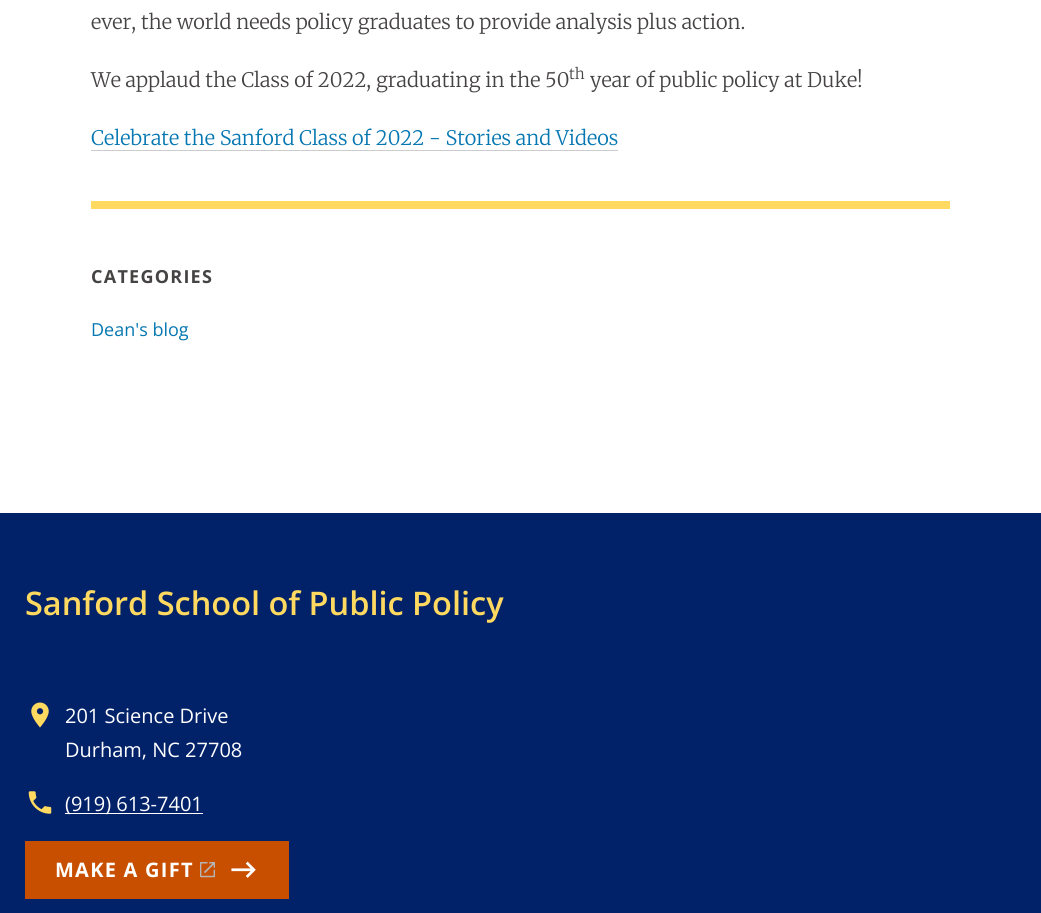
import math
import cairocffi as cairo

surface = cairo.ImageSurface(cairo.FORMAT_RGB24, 1041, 913)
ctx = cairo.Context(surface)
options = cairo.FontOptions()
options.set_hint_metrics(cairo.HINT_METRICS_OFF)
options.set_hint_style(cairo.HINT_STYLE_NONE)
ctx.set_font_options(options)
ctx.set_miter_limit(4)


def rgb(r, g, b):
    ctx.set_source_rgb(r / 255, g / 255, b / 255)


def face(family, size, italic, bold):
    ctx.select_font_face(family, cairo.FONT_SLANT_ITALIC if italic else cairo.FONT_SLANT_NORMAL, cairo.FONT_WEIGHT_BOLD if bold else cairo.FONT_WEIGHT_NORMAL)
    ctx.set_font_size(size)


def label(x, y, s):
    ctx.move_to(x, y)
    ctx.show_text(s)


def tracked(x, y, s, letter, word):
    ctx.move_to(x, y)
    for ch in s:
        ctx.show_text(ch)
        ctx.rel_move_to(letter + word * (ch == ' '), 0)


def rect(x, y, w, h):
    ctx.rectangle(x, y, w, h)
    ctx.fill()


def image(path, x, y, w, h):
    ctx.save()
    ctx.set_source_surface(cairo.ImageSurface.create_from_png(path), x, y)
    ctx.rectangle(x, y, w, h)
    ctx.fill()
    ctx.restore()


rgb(255, 255, 255)
ctx.paint()
face('Merriweather Light', 20, 0, 0)
rgb(70, 67, 67)
label(91, 29, 'ever, the world needs policy graduates to provide analysis plus action.')
label(91, 87, 'We applaud the Class of 2022, graduating in the 50')
face('Merriweather Light', 15, 0, 0)
label(569, 79, 'th')
face('Merriweather Light', 20, 0, 0)
label(590, 87, 'year of public policy at Duke!')
rgb(5, 119, 177)
label(91, 145, 'Celebrate the Sanford Class of 2022 - Stories and Videos')
rgb(204, 204, 204)
rect(91, 150, 527, 1)
rgb(255, 217, 96)
rect(91, 201, 859, 8)
face('Open Sans', 18, 0, 1)
rgb(70, 67, 67)
tracked(91, 283, 'CATEGORIES', 1.25, 0)
face('Open Sans', 18, 0, 0)
rgb(5, 119, 177)
label(91, 336, 'Dean\'s blog')
rgb(1, 33, 105)
rect(0, 513, 1041, 400)
face('Open Sans SemiBold', 32.5, 0, 0)
rgb(255, 217, 96)
label(25, 615, 'Sanford School of Public Policy')
image('image0.png', 31, 702, 18, 26)
face('Open Sans', 20, 0, 0)
rgb(255, 255, 255)
label(65, 723, '201 Science Drive')
label(65, 757, 'Durham, NC 27708')
image('image1.png', 28, 791, 24, 23)
rect(65, 813, 138, 1)
label(65, 811, '(919) 613-7401')
rgb(200, 78, 0)
rect(25, 841, 264, 58)
face('Open Sans', 20, 0, 1)
rgb(255, 255, 255)
tracked(55, 877, 'MAKE A GIFT', 1.25, 0)
image('image2.png', 200, 862, 15, 16)
image('image3.png', 231, 861, 25, 17)
surface.write_to_png('render.png')
